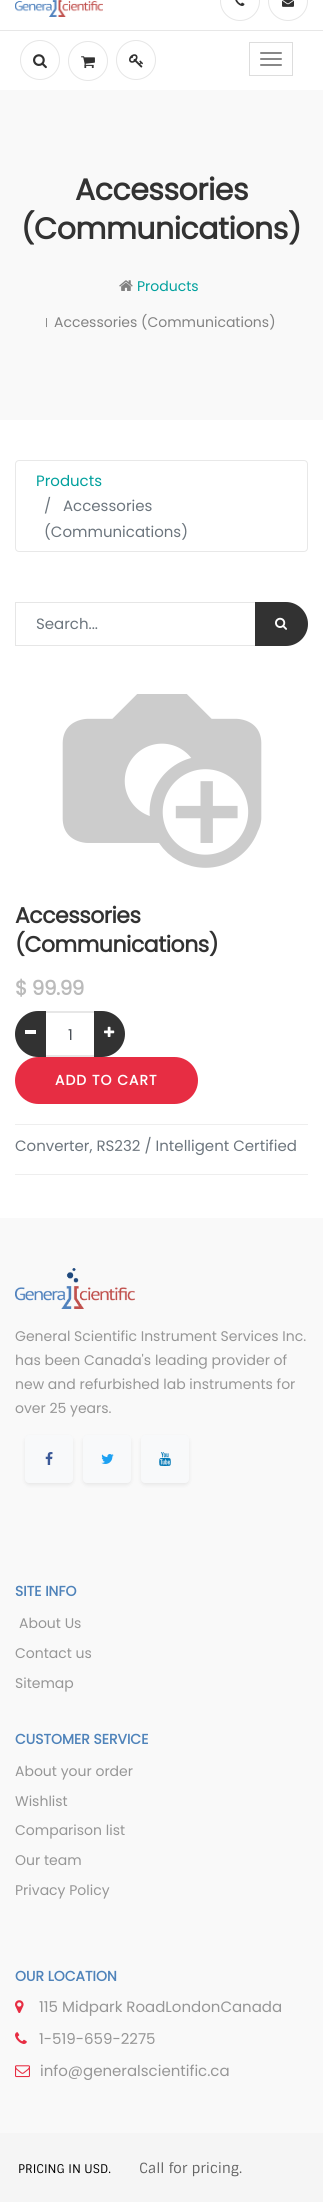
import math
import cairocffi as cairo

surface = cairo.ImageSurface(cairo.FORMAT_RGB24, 323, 2202)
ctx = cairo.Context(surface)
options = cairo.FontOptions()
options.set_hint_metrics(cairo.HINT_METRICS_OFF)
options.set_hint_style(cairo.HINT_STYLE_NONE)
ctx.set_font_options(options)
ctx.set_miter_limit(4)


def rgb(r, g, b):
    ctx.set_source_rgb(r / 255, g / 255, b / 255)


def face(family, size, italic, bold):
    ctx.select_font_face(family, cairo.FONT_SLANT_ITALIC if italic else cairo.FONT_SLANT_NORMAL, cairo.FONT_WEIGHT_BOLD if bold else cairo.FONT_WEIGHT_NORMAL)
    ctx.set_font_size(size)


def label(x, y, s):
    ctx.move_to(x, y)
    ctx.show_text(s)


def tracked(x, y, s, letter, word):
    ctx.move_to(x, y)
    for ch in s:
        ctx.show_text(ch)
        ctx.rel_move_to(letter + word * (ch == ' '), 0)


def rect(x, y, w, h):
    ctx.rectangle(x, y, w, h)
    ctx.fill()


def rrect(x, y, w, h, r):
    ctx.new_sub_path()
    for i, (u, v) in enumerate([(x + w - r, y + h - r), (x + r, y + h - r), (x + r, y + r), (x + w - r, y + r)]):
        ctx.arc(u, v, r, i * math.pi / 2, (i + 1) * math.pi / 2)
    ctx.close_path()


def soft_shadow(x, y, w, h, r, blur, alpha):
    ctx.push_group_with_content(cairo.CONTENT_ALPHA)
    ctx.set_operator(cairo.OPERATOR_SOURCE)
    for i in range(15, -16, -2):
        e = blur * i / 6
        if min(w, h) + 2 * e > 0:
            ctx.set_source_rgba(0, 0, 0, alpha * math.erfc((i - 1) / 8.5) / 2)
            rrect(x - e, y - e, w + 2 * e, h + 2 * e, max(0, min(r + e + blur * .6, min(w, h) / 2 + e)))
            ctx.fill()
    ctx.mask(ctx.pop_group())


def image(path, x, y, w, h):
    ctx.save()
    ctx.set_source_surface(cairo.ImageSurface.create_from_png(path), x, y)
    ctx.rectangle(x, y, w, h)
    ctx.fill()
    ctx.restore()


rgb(255, 255, 255)
ctx.paint()
ctx.arc(240, 1, 19.5, 0, 2 * math.pi)
rgb(230, 230, 230)
ctx.set_line_width(1)
ctx.stroke()
image('image0.png', 235, 0, 10, 6)
ctx.arc(288, 1, 19.5, 0, 2 * math.pi)
ctx.stroke()
image('image1.png', 282, 0, 12, 7)
image('image2.png', 15, 0, 88, 17)
ctx.arc(40, 60, 19.5, 0, 2 * math.pi)
ctx.stroke()
image('image3.png', 33, 54, 14, 15)
ctx.arc(88, 61, 19.5, 0, 2 * math.pi)
ctx.stroke()
image('image4.png', 81, 56, 14, 13)
ctx.arc(136, 60, 19.5, 0, 2 * math.pi)
ctx.stroke()
image('image5.png', 129, 54, 14, 14)
ctx.rectangle(249.5, 42.5, 43, 33)
rgb(221, 221, 221)
ctx.stroke()
rgb(136, 136, 136)
rrect(260, 52, 22, 2, 1)
ctx.fill()
rrect(260, 58, 22, 2, 1)
ctx.fill()
rrect(260, 64, 22, 2, 1)
ctx.fill()
rgb(231, 231, 231)
rect(0, 30, 323, 1)
rgb(249, 249, 249)
rect(0, 90, 323, 330)
face('Poppins', 30, 0, 1)
rgb(50, 50, 50)
tracked(75, 200, 'Accessories', -0.5, 0)
tracked(21, 239, '(Communications)', -0.5, 0)
image('image6.png', 119, 280, 14, 11)
face('Poppins', 14, 0, 0)
rgb(0, 160, 157)
label(137, 291, 'Products')
face('Poppins', 10, 0, 0)
rgb(130, 130, 130)
label(45, 326, '|')
face('Poppins', 14, 0, 0)
label(54, 327, 'Accessories (Communications)')
rrect(15.5, 460.5, 292, 91, 3.5)
rgb(232, 232, 232)
ctx.stroke()
face('Poppins', 15, 0, 0)
rgb(0, 160, 157)
label(36, 486, 'Products')
rgb(108, 117, 125)
label(44, 511, '/')
label(63, 511, 'Accessories')
label(44, 537, '(Communications)')
ctx.rectangle(15.5, 602.5, 240, 43)
rgb(230, 230, 230)
ctx.stroke()
rgb(108, 117, 125)
label(36, 629, 'Search...')
rgb(50, 50, 50)
ctx.new_path()
ctx.move_to(255, 602)
ctx.line_to(286, 602)
ctx.curve_to(298, 602, 308, 612, 308, 624)
ctx.curve_to(308, 636, 298, 646, 286, 646)
ctx.line_to(255, 646)
ctx.close_path()
ctx.fill()
image('image7.png', 275, 617, 12, 13)
image('image8.png', 62, 694, 200, 174)
face('Poppins', 22, 0, 1)
tracked(15, 923, 'Accessories', -0.5, 0)
tracked(15, 952, '(Communications)', -0.5, 0)
face('Poppins', 20, 0, 1)
rgb(187, 187, 187)
tracked(15, 995, '$ 99.99', -0.5, 0)
rgb(231, 231, 231)
rect(45, 1011, 50, 2)
rect(45, 1055, 50, 2)
rgb(50, 50, 50)
ctx.new_path()
ctx.move_to(38, 1011)
ctx.line_to(46, 1011)
ctx.line_to(46, 1057)
ctx.line_to(38, 1057)
ctx.curve_to(25.5, 1057, 15, 1046.5, 15, 1034)
ctx.curve_to(15, 1021.5, 25.5, 1011, 38, 1011)
ctx.close_path()
ctx.fill()
rgb(255, 255, 255)
rect(25, 1030, 11, 4)
face('Poppins', 15, 0, 0)
rgb(73, 80, 87)
label(68, 1040, '1')
rgb(50, 50, 50)
ctx.new_path()
ctx.move_to(94, 1011)
ctx.line_to(102, 1011)
ctx.curve_to(114.5, 1011, 125, 1021.5, 125, 1034)
ctx.curve_to(125, 1046.5, 114.5, 1057, 102, 1057)
ctx.line_to(94, 1057)
ctx.close_path()
ctx.fill()
image('image9.png', 104, 1026, 11, 11)
rgb(231, 45, 67)
rrect(15, 1057, 183, 47, 23.5)
ctx.fill()
face('Poppins', 14, 0, 1)
rgb(255, 255, 255)
tracked(55, 1085, 'ADD TO CART', 1, 0)
rgb(238, 238, 238)
rect(15, 1124, 293, 1)
face('Poppins', 15, 0, 0)
rgb(108, 117, 125)
label(15, 1151, 'Converter, RS232 / Intelligent Certified')
rgb(238, 238, 238)
rect(15, 1174, 293, 1)
rgb(249, 249, 249)
rect(0, 1218, 323, 915)
image('image10.png', 15, 1268, 120, 41)
face('Poppins', 14, 0, 0)
rgb(150, 150, 150)
label(15, 1341, 'General Scientific Instrument Services Inc.')
label(15, 1365, 'has been Canada\'s leading provider of')
label(15, 1389, 'new and refurbished lab instruments for')
label(15, 1413, 'over 25 years.')
rgb(0, 0, 0)
soft_shadow(25, 1437, 48, 48, 4, 2, 0.07)
rgb(248, 249, 250)
rrect(25, 1435, 48, 48, 4)
ctx.fill()
image('image11.png', 45, 1452, 8, 13)
rgb(0, 0, 0)
soft_shadow(83, 1437, 48, 48, 4, 2, 0.07)
rgb(248, 249, 250)
rrect(83, 1435, 48, 48, 4)
ctx.fill()
image('image12.png', 101, 1454, 13, 10)
rgb(0, 0, 0)
soft_shadow(141, 1437, 48, 48, 4, 2, 0.07)
rgb(248, 249, 250)
rrect(141, 1435, 48, 48, 4)
ctx.fill()
image('image13.png', 159, 1452, 12, 14)
face('Poppins', 14, 0, 1)
rgb(79, 131, 186)
label(15, 1596, 'SITE INFO')
face('Poppins', 14, 0, 0)
rgb(150, 150, 150)
label(19, 1628, 'About Us')
label(15, 1658, 'Contact us')
label(15, 1688, 'Sitemap')
face('Poppins', 14, 0, 1)
rgb(79, 131, 186)
label(15, 1744, 'CUSTOMER SERVICE')
face('Poppins', 14, 0, 0)
rgb(150, 150, 150)
label(15, 1776, 'About your order')
label(15, 1806, 'Wishlist')
label(15, 1835, 'Comparison list')
label(15, 1865, 'Our team')
label(15, 1895, 'Privacy Policy')
face('Poppins', 14, 0, 1)
rgb(79, 131, 186)
label(15, 1981, 'OUR LOCATION')
image('image14.png', 15, 2000, 9, 13)
face('Poppins', 15, 0, 0)
rgb(150, 150, 150)
label(39, 2012, '115 Midpark RoadLondonCanada')
image('image15.png', 15, 2032, 12, 12)
label(39, 2044, '1-519-659-2275')
image('image16.png', 15, 2065, 15, 13)
label(40, 2076, 'info@generalscientific.ca')
rgb(245, 245, 245)
rect(0, 2133, 323, 69)
face('Sintony', 12, 0, 0)
rgb(0, 0, 0)
label(18, 2173, 'PRICING IN USD.')
face('Sintony', 14, 0, 0)
rgb(99, 99, 99)
label(139, 2173, 'Call for pricing.')
surface.write_to_png('render.png')
